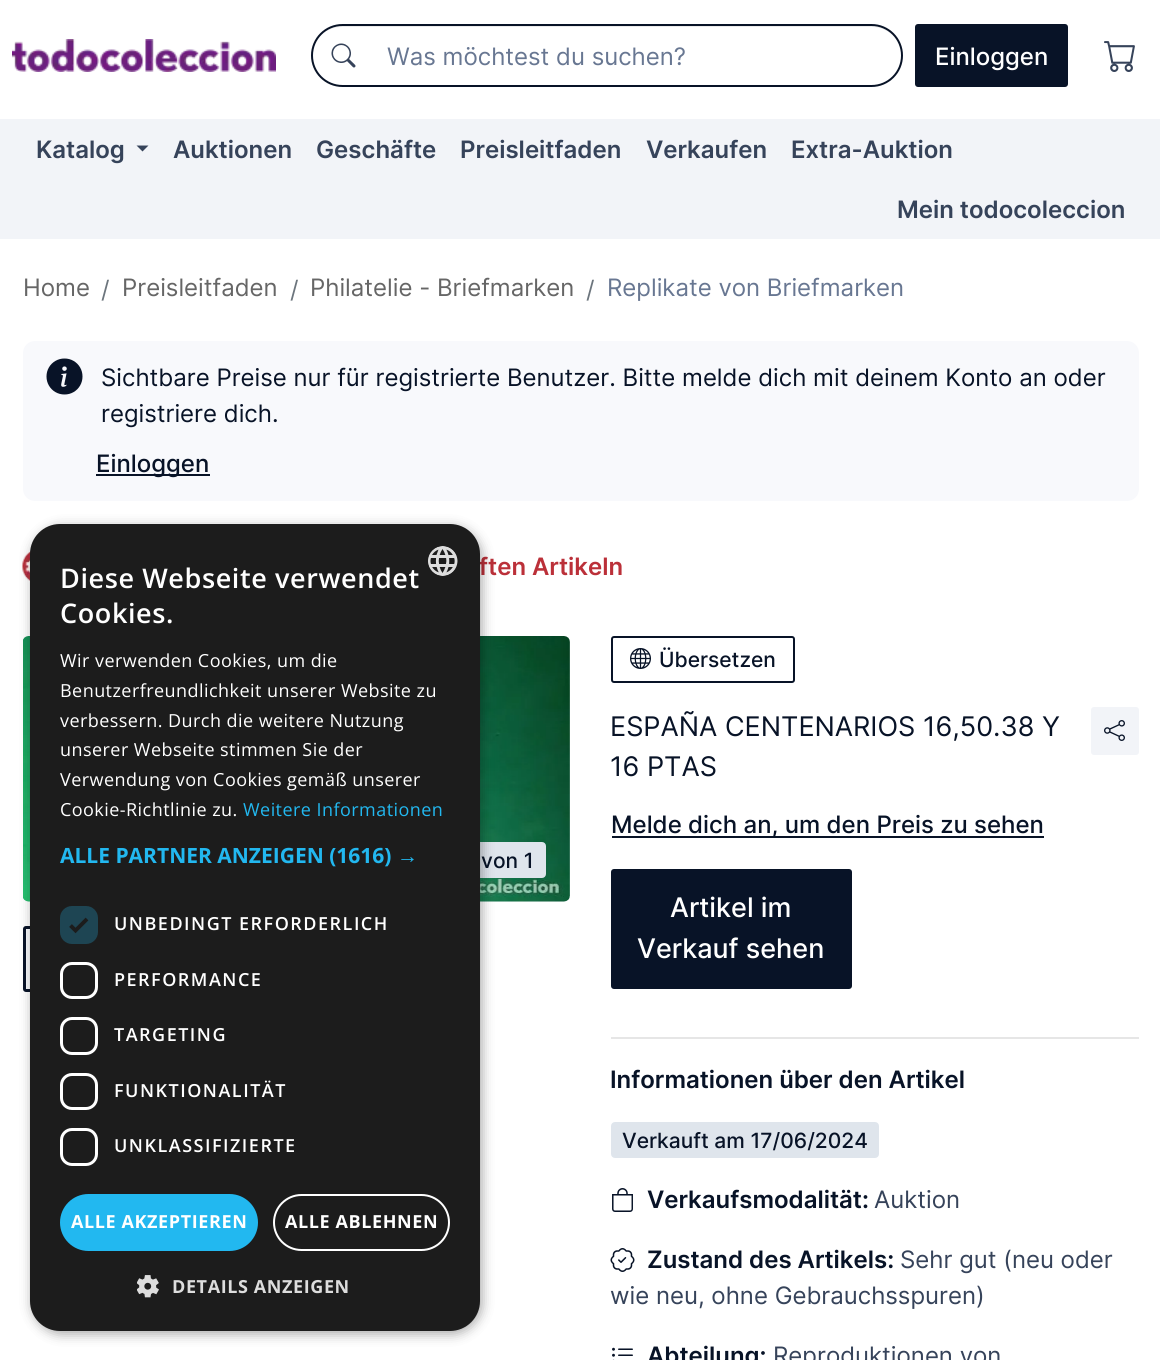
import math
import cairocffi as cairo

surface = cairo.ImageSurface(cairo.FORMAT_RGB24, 1160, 1360)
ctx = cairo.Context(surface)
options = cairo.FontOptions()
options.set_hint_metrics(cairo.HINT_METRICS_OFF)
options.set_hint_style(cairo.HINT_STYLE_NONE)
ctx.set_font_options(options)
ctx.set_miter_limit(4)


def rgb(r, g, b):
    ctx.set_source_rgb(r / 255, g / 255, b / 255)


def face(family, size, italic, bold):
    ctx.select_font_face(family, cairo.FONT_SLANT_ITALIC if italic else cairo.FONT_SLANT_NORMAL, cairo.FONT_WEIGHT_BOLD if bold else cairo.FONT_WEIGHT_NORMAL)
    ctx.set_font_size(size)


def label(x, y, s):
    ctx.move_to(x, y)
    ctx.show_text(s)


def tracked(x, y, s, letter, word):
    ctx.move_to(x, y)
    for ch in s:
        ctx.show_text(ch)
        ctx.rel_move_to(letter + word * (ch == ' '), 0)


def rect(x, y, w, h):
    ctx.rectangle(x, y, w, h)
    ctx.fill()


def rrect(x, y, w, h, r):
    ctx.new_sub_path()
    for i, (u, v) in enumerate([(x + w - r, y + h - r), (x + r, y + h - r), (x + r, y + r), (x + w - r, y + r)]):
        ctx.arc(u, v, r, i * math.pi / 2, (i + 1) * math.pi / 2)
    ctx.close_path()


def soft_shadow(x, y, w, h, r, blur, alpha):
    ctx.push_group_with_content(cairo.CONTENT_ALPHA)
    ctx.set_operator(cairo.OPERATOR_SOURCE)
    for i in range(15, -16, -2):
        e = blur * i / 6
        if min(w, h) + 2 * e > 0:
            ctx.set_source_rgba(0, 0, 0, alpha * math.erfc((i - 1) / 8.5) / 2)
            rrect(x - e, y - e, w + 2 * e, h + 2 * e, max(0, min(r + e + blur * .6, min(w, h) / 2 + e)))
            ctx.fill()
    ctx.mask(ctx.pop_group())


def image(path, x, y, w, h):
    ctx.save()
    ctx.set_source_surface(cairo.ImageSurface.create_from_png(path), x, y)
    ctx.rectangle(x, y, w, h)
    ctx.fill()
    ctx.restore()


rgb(255, 255, 255)
ctx.paint()
image('image0.png', 12, 39, 264, 33)
rgb(236, 236, 236)
ctx.new_path()
ctx.move_to(342, 27)
ctx.line_to(872, 27)
ctx.curve_to(888, 27, 902, 40, 902, 56)
ctx.curve_to(902, 40, 889, 26, 872, 26)
ctx.line_to(342, 26)
ctx.curve_to(325, 26, 312, 40, 312, 56)
ctx.curve_to(312, 40, 325, 27, 342, 27)
ctx.close_path()
ctx.fill()
rrect(312, 25, 590, 61, 30.5)
rgb(8, 19, 39)
ctx.stroke()
image('image1.png', 331, 43, 25, 25)
face('Inter', 24, 0, 0)
rgb(104, 119, 146)
label(387, 65, 'Was möchtest du suchen?')
rgb(8, 19, 39)
rrect(916, 25, 151, 61, 2)
ctx.fill_preserve()
ctx.stroke()
face('Inter Medium', 24, 0, 0)
rgb(255, 255, 255)
label(935, 65, 'Einloggen')
image('image2.png', 1104, 41, 31, 31)
rgb(242, 244, 248)
rect(0, 119, 1160, 120)
face('Inter SemiBold', 24, 0, 0)
rgb(54, 67, 90)
label(36, 158, 'Katalog')
ctx.new_path()
ctx.move_to(136.5, 145.5)
ctx.line_to(148.5, 145.5)
ctx.line_to(142.5, 151.5)
ctx.close_path()
ctx.fill()
label(173, 158, 'Auktionen')
label(316, 158, 'Geschäfte')
label(460, 158, 'Preisleitfaden')
label(646, 158, 'Verkaufen')
label(791, 158, 'Extra-Auktion')
label(897, 218, 'Mein todocoleccion')
face('Inter', 24, 0, 0)
rgb(102, 102, 102)
label(23, 296, 'Home')
rgb(108, 117, 125)
label(101, 298, '/')
rgb(102, 102, 102)
label(122, 296, 'Preisleitfaden')
rgb(108, 117, 125)
label(290, 298, '/')
rgb(102, 102, 102)
label(310, 296, 'Philatelie - Briefmarken')
rgb(108, 117, 125)
label(586, 298, '/')
rgb(104, 119, 146)
label(607, 296, 'Replikate von Briefmarken')
rgb(248, 249, 252)
rrect(23, 341, 1116, 160, 12)
ctx.fill()
image('image3.png', 46, 358, 37, 37)
rgb(8, 19, 39)
label(101, 386, 'Sichtbare Preise nur für registrierte Benutzer. Bitte melde dich mit deinem Konto an oder')
label(101, 422, 'registriere dich.')
rect(96, 474, 114, 2)
face('Inter Medium', 24, 0, 0)
label(96, 472, 'Einloggen')
image('image4.png', 22, 551, 9, 30)
face('Inter SemiBold', 24, 0, 0)
rgb(187, 48, 57)
label(479, 575, 'ften Artikeln')
rgb(248, 249, 252)
rrect(23, 636, 547, 266, 6)
ctx.fill()
image('image5.png', 23, 636, 547, 266)
rgb(223, 229, 236)
rrect(454, 843, 91, 34, 3)
ctx.fill_preserve()
ctx.stroke()
face('Inter Medium', 21, 0, 0)
rgb(8, 19, 39)
label(481, 868, 'von 1')
rgb(248, 249, 252)
rrect(24.5, 927.5, 193, 63, 1.5)
ctx.fill_preserve()
rgb(8, 19, 39)
ctx.set_line_width(3)
ctx.stroke()
rrect(612, 637, 182, 45, 2)
ctx.set_line_width(2)
ctx.stroke()
image('image6.png', 630, 648, 21, 21)
label(659, 667, 'Übersetzen')
face('Inter', 27, 0, 0)
label(610, 736, 'ESPAÑA CENTENARIOS 16,50.38 Y')
label(610, 776, '16 PTAS')
rgb(242, 244, 248)
rrect(1092, 708, 46, 46, 2)
ctx.fill_preserve()
ctx.stroke()
image('image7.png', 1104, 720, 21, 21)
rgb(8, 19, 39)
rect(612, 836, 432, 2)
face('Inter Medium', 24, 0, 0)
label(611, 833, 'Melde dich an, um den Preis zu sehen')
rrect(612, 870, 239, 118, 2)
ctx.fill_preserve()
ctx.stroke()
face('Inter Medium', 27, 0, 0)
rgb(255, 255, 255)
label(670, 917, 'Artikel im')
label(637, 958, 'Verkauf sehen')
rgb(230, 230, 230)
rect(611, 1037, 528, 2)
face('Inter SemiBold', 24, 0, 0)
rgb(8, 19, 39)
label(610, 1088, 'Informationen über den Artikel')
rgb(223, 229, 236)
rrect(612, 1123, 266, 34, 3)
ctx.fill_preserve()
ctx.stroke()
face('Inter Medium', 21, 0, 0)
rgb(8, 19, 39)
label(622, 1148, 'Verkauft am 17/06/2024')
image('image8.png', 612, 1188, 21, 24)
face('Inter SemiBold', 24, 0, 0)
label(647, 1208, 'Verkaufsmodalität:')
face('Inter', 24, 0, 0)
rgb(54, 67, 90)
label(874, 1208, 'Auktion')
image('image9.png', 610, 1248, 25, 24)
face('Inter SemiBold', 24, 0, 0)
rgb(8, 19, 39)
label(647, 1268, 'Zustand des Artikels:')
face('Inter', 24, 0, 0)
rgb(54, 67, 90)
label(900, 1268, 'Sehr gut (neu oder')
label(610, 1304, 'wie neu, ohne Gebrauchsspuren)')
image('image10.png', 612, 1347, 21, 13)
face('Inter SemiBold', 24, 0, 0)
rgb(8, 19, 39)
label(647, 1364, 'Abteilung:')
face('Inter', 24, 0, 0)
rgb(54, 67, 90)
label(773, 1364, 'Reproduktionen von')
rgb(0, 0, 0)
soft_shadow(32, 527, 450, 807, 30, 6, 0.35)
rgb(28, 28, 28)
rrect(30, 524, 450, 807, 30)
ctx.fill()
image('image11.png', 428, 546, 30, 30)
face('Open Sans SemiBold', 27, 0, 0)
rgb(255, 255, 255)
tracked(60, 588, 'Diese Webseite verwendet', 0.6, 0)
tracked(60, 623, 'Cookies.', 0.6, 0)
face('Open Sans', 18, 0, 0)
tracked(60, 667, 'Wir verwenden Cookies, um die', 0.45, 0)
tracked(60, 697, 'Benutzerfreundlichkeit unserer Website zu', 0.45, 0)
tracked(60, 727, 'verbessern. Durch die weitere Nutzung', 0.45, 0)
tracked(60, 756, 'unserer Webseite stimmen Sie der', 0.45, 0)
tracked(60, 786, 'Verwendung von Cookies gemäß unserer', 0.45, 0)
tracked(60, 816, 'Cookie-Richtlinie zu.', 0.45, 0)
rgb(34, 184, 240)
tracked(243, 816, 'Weitere Informationen', 0.45, 0)
face('Open Sans', 21, 0, 1)
label(60, 863, 'ALLE PARTNER ANZEIGEN (1616)')
face('Liberation Sans', 21, 0, 1)
label(397, 863, '→')
rgb(30, 69, 83)
rrect(60, 906, 38, 38, 12)
ctx.fill()
ctx.new_path()
ctx.move_to(70.5, 925.5)
ctx.line_to(75.5, 930.5)
ctx.line_to(87, 919)
rgb(28, 28, 28)
ctx.set_line_width(3.9)
ctx.stroke()
face('Open Sans SemiBold', 18, 0, 0)
rgb(255, 255, 255)
tracked(114, 930, 'UNBEDINGT ERFORDERLICH', 1.5, 0)
rrect(61.5, 963.5, 35, 34, 10.5)
ctx.set_line_width(3)
ctx.stroke()
tracked(114, 986, 'PERFORMANCE', 1.5, 0)
rrect(61.5, 1018.5, 35, 35, 10.5)
ctx.stroke()
tracked(114, 1041, 'TARGETING', 1.5, 0)
rrect(61.5, 1074.5, 35, 34, 10.5)
ctx.stroke()
tracked(114, 1097, 'FUNKTIONALITÄT', 1.5, 0)
rrect(61.5, 1129.5, 35, 35, 10.5)
ctx.stroke()
tracked(114, 1152, 'UNKLASSIFIZIERTE', 1.5, 0)
rgb(34, 184, 240)
rrect(60, 1194, 198, 57, 28.5)
ctx.fill()
face('Open Sans', 18, 0, 1)
rgb(255, 255, 255)
tracked(71, 1228, 'ALLE AKZEPTIEREN', 0.6, 0)
rrect(274, 1195, 175, 55, 27.5)
ctx.set_line_width(2)
ctx.stroke()
tracked(285, 1228, 'ALLE ABLEHNEN', 0.6, 0)
image('image12.png', 137, 1275, 22, 23)
rgb(221, 221, 221)
tracked(172, 1293, 'DETAILS ANZEIGEN', 0.6, 0)
surface.write_to_png('render.png')
